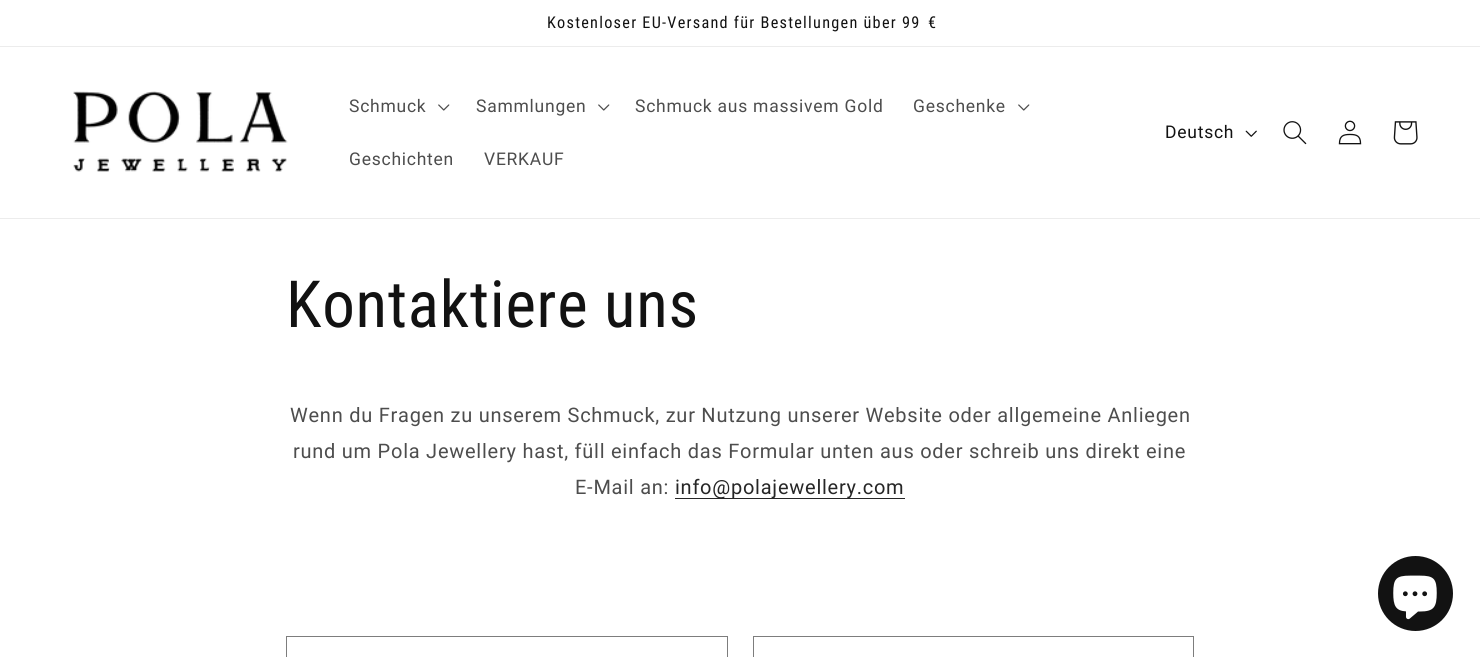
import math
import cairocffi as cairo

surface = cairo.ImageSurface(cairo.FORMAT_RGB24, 1480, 657)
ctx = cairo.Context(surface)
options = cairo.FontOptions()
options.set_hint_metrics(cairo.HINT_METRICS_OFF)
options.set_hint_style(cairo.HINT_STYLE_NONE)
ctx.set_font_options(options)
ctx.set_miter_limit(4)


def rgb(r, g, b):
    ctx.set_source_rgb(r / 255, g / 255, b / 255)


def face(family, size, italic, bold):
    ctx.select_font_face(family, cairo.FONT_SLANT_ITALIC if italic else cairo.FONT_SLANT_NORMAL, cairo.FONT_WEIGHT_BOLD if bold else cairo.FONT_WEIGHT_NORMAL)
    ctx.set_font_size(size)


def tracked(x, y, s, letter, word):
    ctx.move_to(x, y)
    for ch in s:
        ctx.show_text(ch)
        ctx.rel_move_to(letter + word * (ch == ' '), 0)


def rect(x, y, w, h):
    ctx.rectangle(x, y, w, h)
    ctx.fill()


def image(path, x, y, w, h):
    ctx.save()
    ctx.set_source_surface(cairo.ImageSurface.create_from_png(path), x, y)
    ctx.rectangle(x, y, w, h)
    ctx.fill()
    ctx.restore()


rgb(255, 255, 255)
ctx.paint()
rgb(236, 236, 236)
rect(0, 46, 1480, 1)
face('Roboto Condensed', 16.25, 0, 0)
rgb(18, 18, 18)
tracked(547, 28, 'Kostenloser EU-Versand für Bestellungen über 99 €', 1.25, 0)
rgb(236, 236, 236)
rect(0, 218, 1480, 1)
image('image0.png', 73, 91, 215, 81)
face('Roboto', 17.5, 0, 0)
rgb(77, 77, 77)
tracked(349, 112, 'Schmuck', 0.75, 0)
image('image1.png', 438, 104, 12, 7)
tracked(476, 112, 'Sammlungen', 0.75, 0)
image('image1.png', 598, 104, 12, 7)
tracked(635, 112, 'Schmuck aus massivem Gold', 0.75, 0)
tracked(913, 112, 'Geschenke', 0.75, 0)
image('image1.png', 1018, 104, 12, 7)
tracked(349, 165, 'Geschichten', 0.75, 0)
tracked(484, 165, 'VERKAUF', 0.75, 0)
rgb(18, 18, 18)
tracked(1165, 138, 'Deutsch', 0.75, 0)
image('image2.png', 1245, 130, 12, 7)
image('image3.png', 1283, 121, 24, 24)
image('image4.png', 1338, 120, 24, 25)
image('image5.png', 1393, 121, 25, 24)
face('Roboto Condensed', 65, 0, 0)
tracked(286, 327, 'Kontaktiere uns', 0.75, 0)
face('Roboto', 20, 0, 0)
rgb(77, 77, 77)
tracked(290, 422, 'Wenn du Fragen zu unserem Schmuck, zur Nutzung unserer Website oder allgemeine Anliegen', 0.75, 0)
tracked(293, 458, 'rund um Pola Jewellery hast, füll einfach das Formular unten aus oder schreib uns direkt eine', 0.75, 0)
tracked(575, 494, 'E-Mail an:', 0.75, 0)
rgb(38, 38, 38)
rect(675, 498, 230, 1)
tracked(675, 494, 'info@polajewellery.com', 0.75, 0)
ctx.rectangle(286.5, 636.5, 441, 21)
rgb(125, 125, 125)
ctx.set_line_width(1)
ctx.stroke()
ctx.rectangle(753.5, 636.5, 440, 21)
ctx.stroke()
rgb(18, 18, 18)
ctx.arc(1415.5, 593.5, 37.5, 0, 2 * math.pi)
ctx.fill()
image('image6.png', 1393, 575, 44, 45)
surface.write_to_png('render.png')
